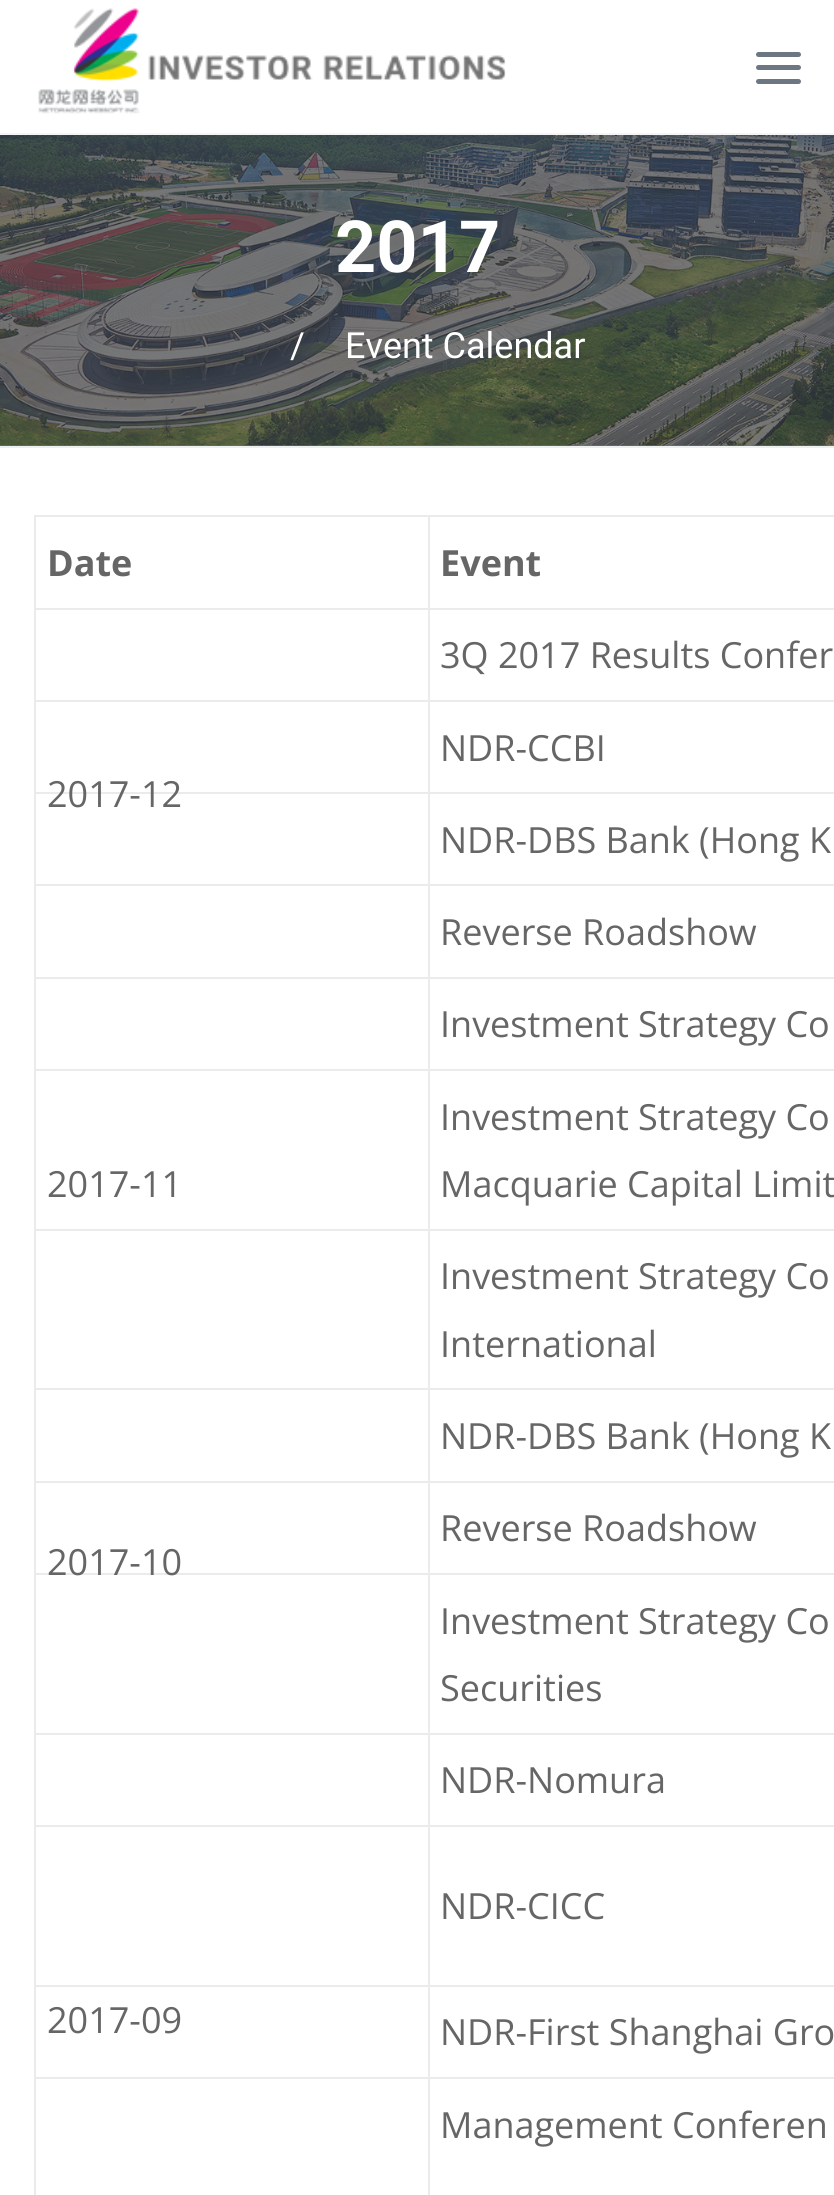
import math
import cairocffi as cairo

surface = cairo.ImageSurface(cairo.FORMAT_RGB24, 834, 2195)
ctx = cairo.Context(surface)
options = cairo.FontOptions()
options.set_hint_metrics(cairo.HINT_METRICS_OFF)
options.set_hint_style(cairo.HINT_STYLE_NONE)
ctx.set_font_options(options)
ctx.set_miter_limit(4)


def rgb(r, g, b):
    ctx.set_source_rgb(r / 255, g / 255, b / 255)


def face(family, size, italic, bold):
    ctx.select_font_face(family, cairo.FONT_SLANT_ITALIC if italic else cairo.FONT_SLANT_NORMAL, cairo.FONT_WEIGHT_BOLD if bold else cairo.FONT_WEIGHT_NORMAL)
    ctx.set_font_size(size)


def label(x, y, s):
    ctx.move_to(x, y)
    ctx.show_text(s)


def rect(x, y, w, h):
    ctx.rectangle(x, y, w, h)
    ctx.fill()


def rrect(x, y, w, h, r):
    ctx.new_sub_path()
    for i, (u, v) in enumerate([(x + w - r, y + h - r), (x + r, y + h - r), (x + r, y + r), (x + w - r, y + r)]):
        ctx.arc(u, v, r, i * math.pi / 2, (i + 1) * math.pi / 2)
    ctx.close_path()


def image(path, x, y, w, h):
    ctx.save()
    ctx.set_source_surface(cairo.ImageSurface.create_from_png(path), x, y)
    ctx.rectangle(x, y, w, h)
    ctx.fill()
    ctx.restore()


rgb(255, 255, 255)
ctx.paint()
rgb(245, 245, 245)
rect(0, 133, 834, 2)
image('image0.png', 38, 8, 468, 106)
rgb(109, 119, 131)
rrect(756, 65, 45, 5, 2.5)
ctx.fill()
rrect(756, 52, 45, 5, 2.5)
ctx.fill()
rrect(756, 79, 45, 5, 2.5)
ctx.fill()
rgb(118, 119, 121)
rect(0, 445, 834, 1)
image('image1.png', 0, 135, 834, 311)
rgb(236, 240, 241)
rect(0, 446, 834, 2)
face('Roboto', 72, 0, 1)
rgb(255, 255, 255)
label(335, 272, '2017')
face('Roboto', 36, 0, 0)
label(290, 358, '/')
label(345, 358, 'Event Calendar')
rgb(235, 235, 235)
rect(34, 515, 800, 2)
rect(34, 608, 800, 2)
rect(34, 700, 800, 2)
rect(34, 792, 800, 2)
rect(34, 884, 800, 2)
rect(34, 977, 800, 2)
rect(34, 1069, 800, 2)
rect(34, 1229, 800, 2)
rect(34, 1388, 800, 2)
rect(34, 1481, 800, 2)
rect(34, 1573, 800, 2)
rect(34, 1733, 800, 2)
rect(34, 1825, 800, 2)
rect(34, 1985, 800, 2)
rect(34, 2077, 800, 2)
rect(34, 2077, 2, 118)
rect(34, 1985, 2, 94)
rect(34, 1825, 2, 162)
rect(34, 1733, 2, 94)
rect(34, 1573, 2, 162)
rect(34, 1481, 2, 94)
rect(34, 1388, 2, 95)
rect(34, 1229, 2, 162)
rect(34, 1069, 2, 162)
rect(34, 977, 2, 94)
rect(34, 884, 2, 95)
rect(34, 792, 2, 95)
rect(34, 700, 2, 94)
rect(34, 608, 2, 94)
rect(34, 515, 2, 95)
face('Open Sans', 36, 0, 1)
rgb(102, 102, 102)
label(47, 576, 'Date')
label(440, 576, 'Event')
face('Open Sans', 36, 0, 0)
label(440, 668, '3Q 2017 Results Confer')
label(47, 807, '2017-12')
label(440, 761, 'NDR-CCBI')
label(440, 853, 'NDR-DBS Bank (Hong K')
label(440, 945, 'Reverse Roadshow')
label(440, 1037, 'Investment Strategy Co')
label(47, 1197, '2017-11')
label(440, 1130, 'Investment Strategy Co')
label(440, 1197, 'Macquarie Capital Limit')
label(440, 1289, 'Investment Strategy Co')
label(440, 1357, 'International')
label(440, 1449, 'NDR-DBS Bank (Hong K')
label(47, 1575, '2017-10')
label(440, 1541, 'Reverse Roadshow')
label(440, 1634, 'Investment Strategy Co')
label(440, 1701, 'Securities')
label(440, 1793, 'NDR-Nomura')
label(47, 2033, '2017-09')
label(440, 1919, 'NDR-CICC')
label(440, 2045, 'NDR-First Shanghai Gro')
rgb(235, 235, 235)
rect(428, 515, 2, 1680)
rgb(102, 102, 102)
label(440, 2138, 'Management Conferen')
surface.write_to_png('render.png')
